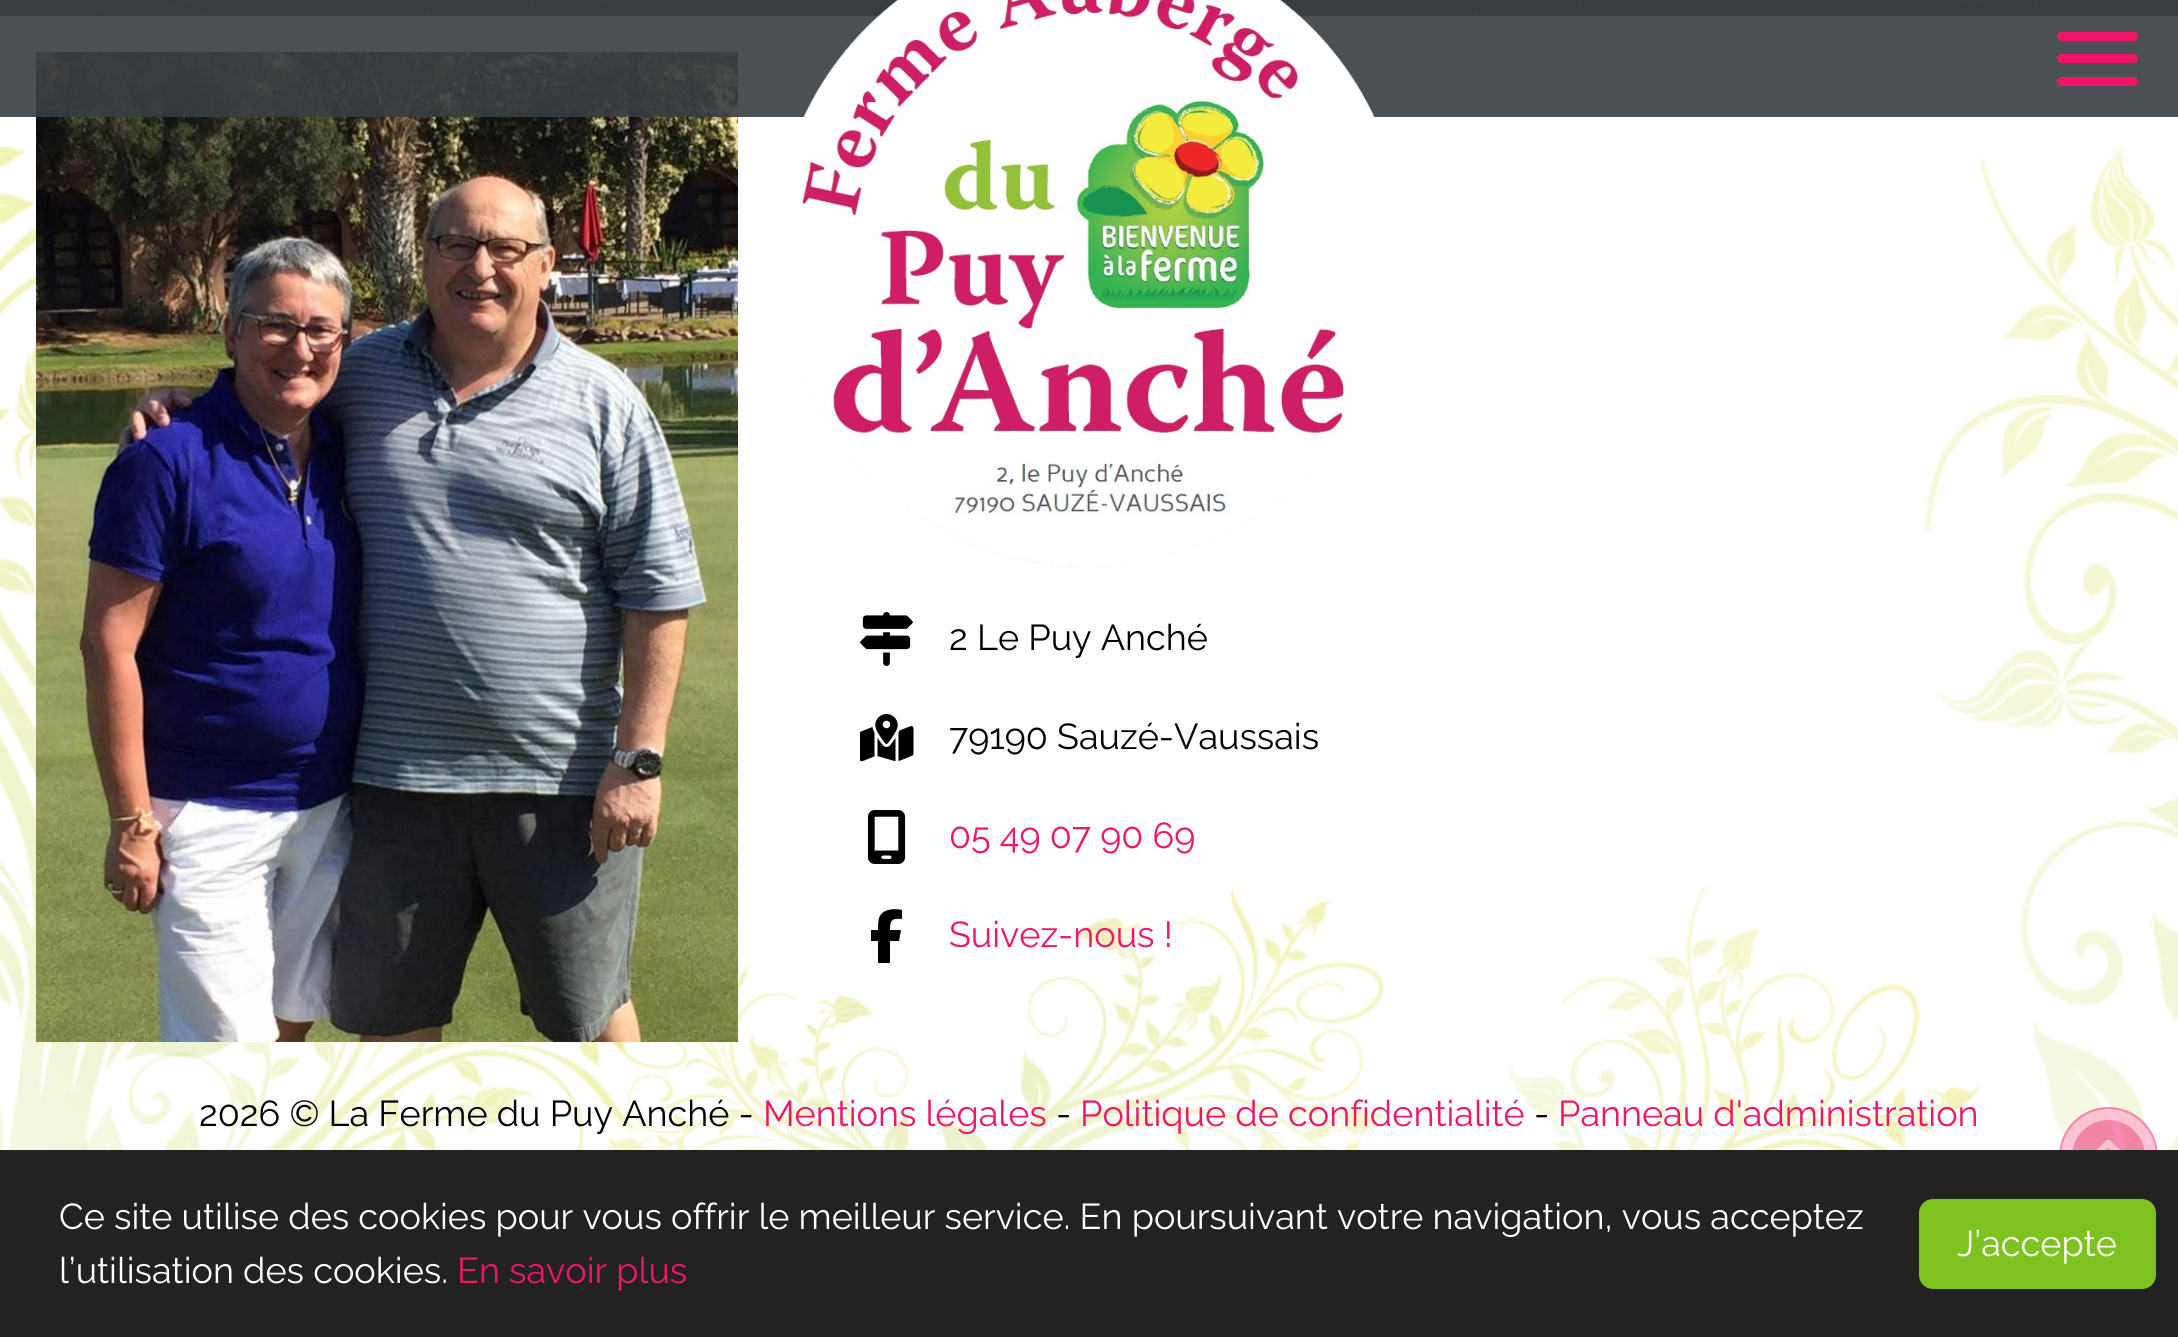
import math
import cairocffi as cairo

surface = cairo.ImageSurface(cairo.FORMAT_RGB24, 2178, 1337)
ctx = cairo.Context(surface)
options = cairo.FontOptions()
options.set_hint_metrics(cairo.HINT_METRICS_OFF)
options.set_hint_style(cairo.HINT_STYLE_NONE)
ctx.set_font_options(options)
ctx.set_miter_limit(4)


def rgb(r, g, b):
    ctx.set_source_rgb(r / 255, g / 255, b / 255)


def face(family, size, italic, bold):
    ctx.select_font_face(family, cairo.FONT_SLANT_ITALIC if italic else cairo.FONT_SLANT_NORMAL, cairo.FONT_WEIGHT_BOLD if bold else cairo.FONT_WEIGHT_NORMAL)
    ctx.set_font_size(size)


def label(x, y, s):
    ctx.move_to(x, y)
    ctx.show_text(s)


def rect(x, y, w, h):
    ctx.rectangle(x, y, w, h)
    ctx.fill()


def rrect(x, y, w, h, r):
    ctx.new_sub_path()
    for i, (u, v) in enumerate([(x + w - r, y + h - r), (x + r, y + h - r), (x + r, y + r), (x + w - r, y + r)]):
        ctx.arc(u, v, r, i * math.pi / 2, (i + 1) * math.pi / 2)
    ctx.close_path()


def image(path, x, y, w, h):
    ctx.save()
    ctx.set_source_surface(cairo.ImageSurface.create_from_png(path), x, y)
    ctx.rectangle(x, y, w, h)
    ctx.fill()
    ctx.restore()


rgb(255, 255, 255)
ctx.paint()
rgb(56, 62, 66)
rect(0, 0, 2178, 16)
image('image0.png', 0, 0, 2178, 16)
image('image1.png', 0, 73, 2178, 1077)
image('image2.png', 36, 52, 702, 990)
ctx.set_source_rgba(0.22, 0.243, 0.259, 0.9)
rect(0, 0, 2178, 117)
rgb(241, 21, 104)
rrect(2057, 32, 81, 9, 4.5)
ctx.fill()
rrect(2057, 54, 81, 9, 4.5)
ctx.fill()
rrect(2057, 77, 81, 9, 4.5)
ctx.fill()
image('image3.png', 797, 0, 578, 568)
image('image4.png', 860, 612, 53, 54)
face('Raleway', 36, 0, 0)
rgb(0, 0, 0)
label(949, 650, '2 Le Puy Anché')
image('image5.png', 860, 714, 54, 48)
label(949, 749, '79190 Sauzé-Vaussais')
image('image6.png', 867, 810, 39, 54)
rgb(241, 21, 104)
label(949, 848, '05 49 07 90 69')
rgb(0, 0, 0)
ctx.new_path()
ctx.move_to(878, 941)
ctx.line_to(878, 963)
ctx.line_to(890, 963)
ctx.line_to(890, 941)
ctx.line_to(899, 941)
ctx.line_to(901, 930)
ctx.line_to(890, 930)
ctx.curve_to(890, 920, 892, 918, 902, 919)
ctx.line_to(902, 910)
ctx.curve_to(894, 908, 882, 909, 879, 918)
ctx.curve_to(878, 922, 878, 926, 878, 930)
ctx.line_to(871, 930)
ctx.line_to(871, 941)
ctx.close_path()
ctx.fill()
rgb(241, 21, 104)
label(949, 947, 'Suivez-nous !')
rgb(0, 0, 0)
label(199, 1126, '2026 © La Ferme du Puy Anché -')
rgb(241, 21, 104)
label(763, 1126, 'Mentions légales')
rgb(0, 0, 0)
label(1056, 1126, '-')
rgb(241, 21, 104)
label(1080, 1126, 'Politique de confidentialité')
rgb(0, 0, 0)
label(1534, 1126, '-')
rgb(241, 21, 104)
label(1558, 1126, 'Panneau d\'administration')
ctx.set_source_rgba(0.945, 0.082, 0.408, 0.5)
ctx.new_path()
ctx.arc(2108.5, 1156.5, 47.5, 0, 2 * math.pi)
ctx.fill()
ctx.arc(2108.5, 1156.5, 42, 0, 2 * math.pi)
ctx.set_source_rgba(1, 1, 1, 0.5)
ctx.set_line_width(11)
ctx.stroke()
ctx.arc(2108.5, 1156.5, 48.5, 0, 2 * math.pi)
ctx.set_source_rgba(0.945, 0.082, 0.408, 0.5)
ctx.set_line_width(2)
ctx.stroke()
image('image7.png', 2096, 1139, 24, 11)
rgb(34, 34, 34)
rect(0, 1150, 2178, 187)
rgb(255, 255, 255)
label(59, 1229, 'Ce site utilise des cookies pour vous offrir le meilleur service. En poursuivant votre navigation, vous acceptez')
label(59, 1283, 'l’utilisation des cookies.')
rgb(241, 21, 104)
label(457, 1283, 'En savoir plus')
rgb(125, 194, 31)
rrect(1920, 1200, 235, 88, 13)
ctx.fill_preserve()
ctx.stroke()
rgb(255, 255, 255)
label(1957, 1256, 'J’accepte')
surface.write_to_png('render.png')
